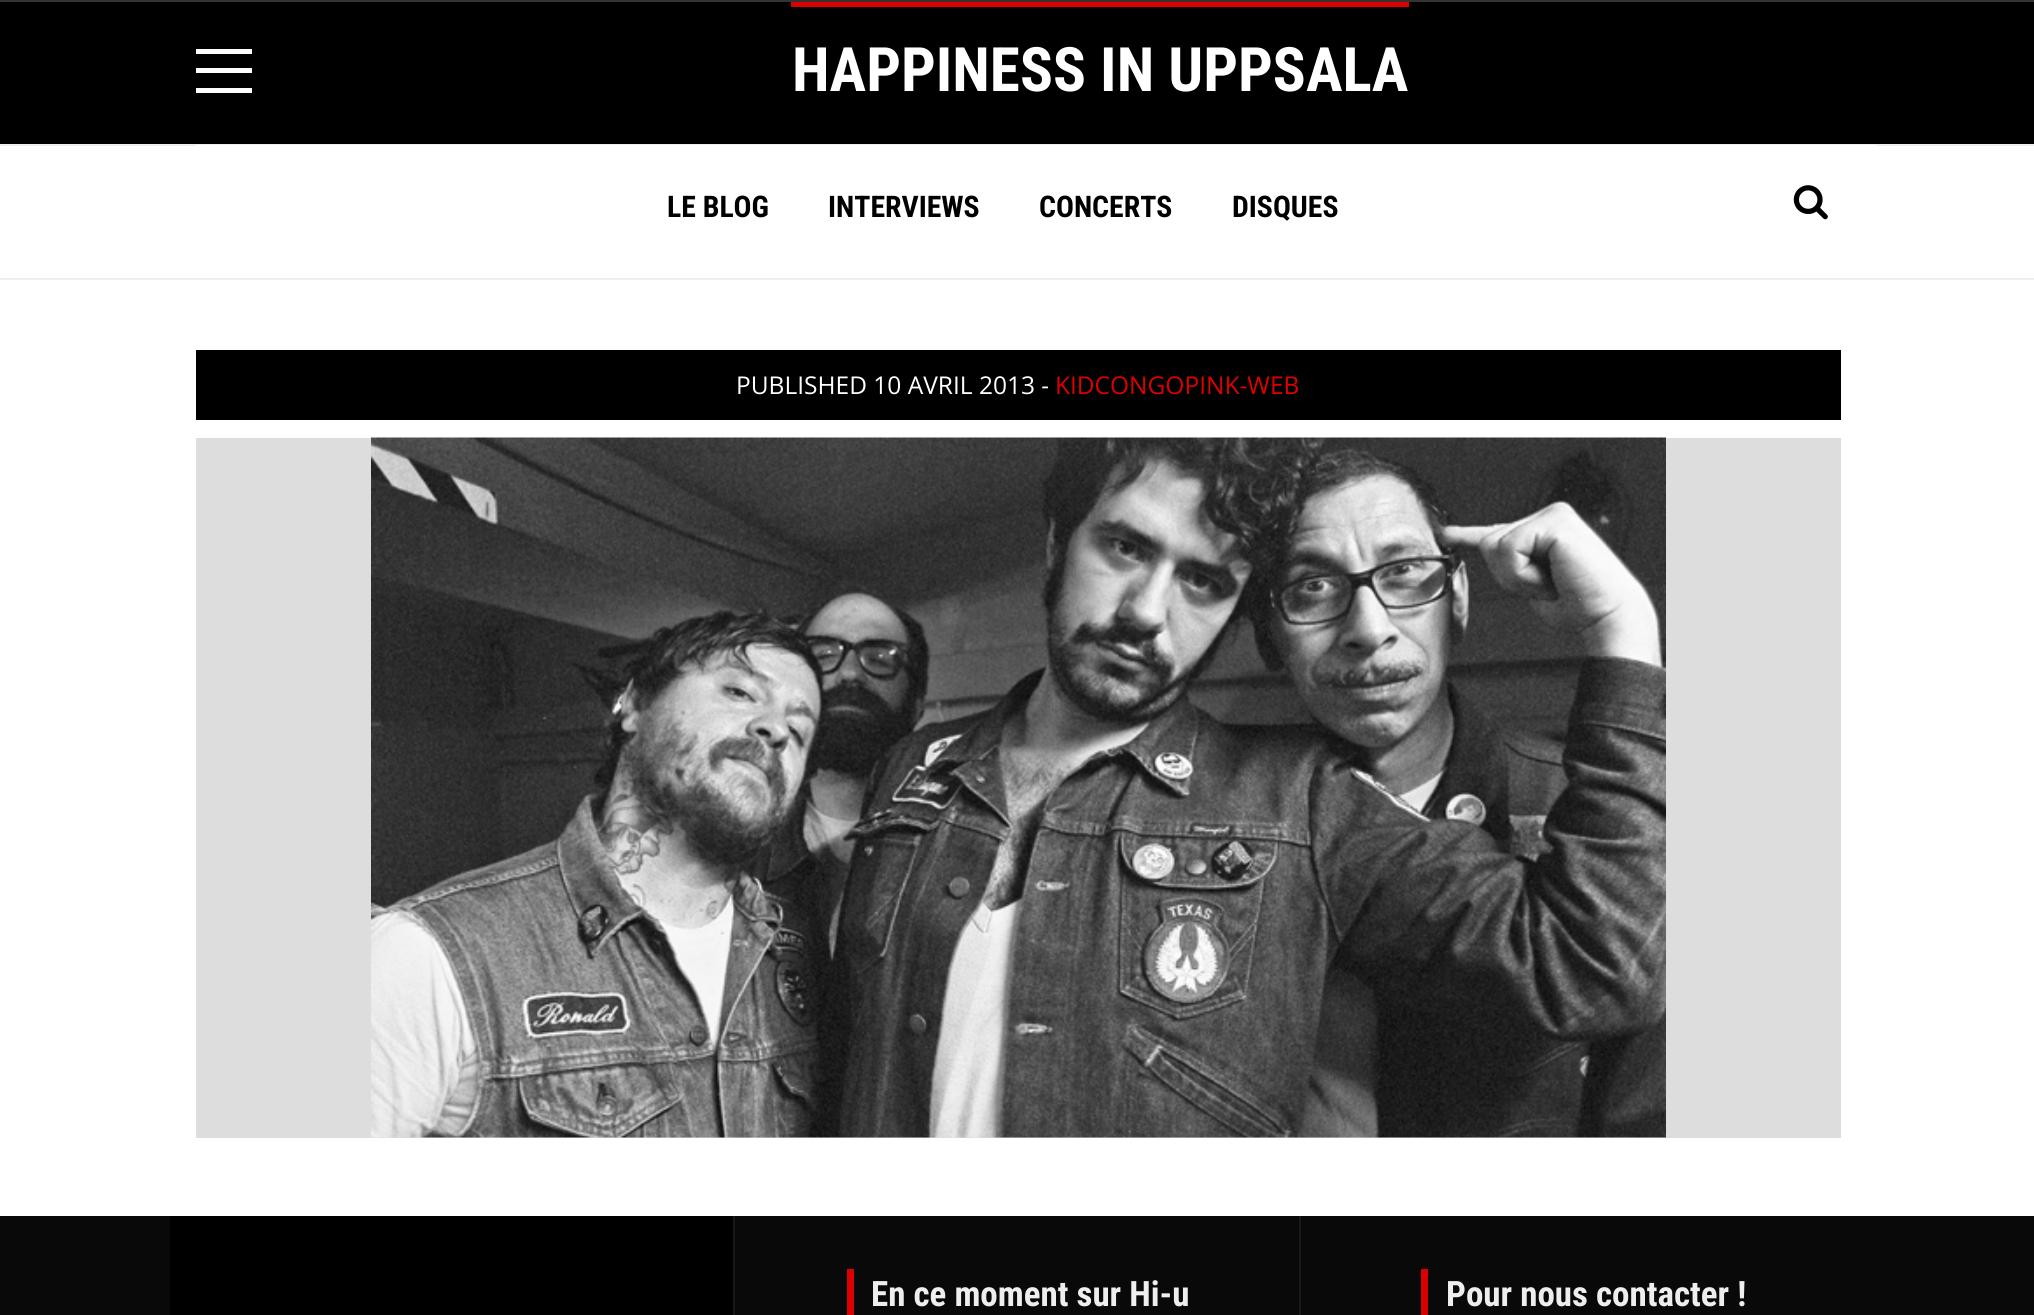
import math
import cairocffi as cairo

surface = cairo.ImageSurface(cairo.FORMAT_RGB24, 2034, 1315)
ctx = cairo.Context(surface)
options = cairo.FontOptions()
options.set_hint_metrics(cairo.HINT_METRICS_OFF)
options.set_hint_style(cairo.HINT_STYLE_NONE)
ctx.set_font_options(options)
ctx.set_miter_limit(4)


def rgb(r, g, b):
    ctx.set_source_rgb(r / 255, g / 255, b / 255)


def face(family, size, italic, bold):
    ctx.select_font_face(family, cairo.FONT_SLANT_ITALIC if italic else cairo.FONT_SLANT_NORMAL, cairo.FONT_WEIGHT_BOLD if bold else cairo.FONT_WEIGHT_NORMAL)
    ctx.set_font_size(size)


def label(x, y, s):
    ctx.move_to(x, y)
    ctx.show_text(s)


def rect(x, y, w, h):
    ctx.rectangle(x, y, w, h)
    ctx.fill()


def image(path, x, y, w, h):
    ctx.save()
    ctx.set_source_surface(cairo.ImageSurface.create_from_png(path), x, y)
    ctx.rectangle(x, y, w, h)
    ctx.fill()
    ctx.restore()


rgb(255, 255, 255)
ctx.paint()
rgb(0, 0, 0)
rect(0, 2, 2034, 142)
rgb(51, 51, 51)
rect(0, 0, 2034, 2)
rgb(255, 255, 255)
rect(196, 68, 56, 5)
rect(196, 49, 56, 5)
rect(196, 88, 56, 5)
rgb(221, 0, 0)
rect(791, 2, 618, 5)
face('Roboto Condensed', 61.25, 0, 1)
rgb(255, 255, 255)
label(792, 91, 'HAPPINESS IN UPPSALA')
rgb(238, 238, 238)
rect(0, 144, 2034, 2)
rect(0, 278, 2034, 2)
rgb(255, 255, 255)
rect(196, 145, 1680, 1)
face('Roboto Condensed', 29.75, 0, 1)
rgb(0, 0, 0)
label(667, 217, 'LE BLOG')
label(828, 217, 'INTERVIEWS')
label(1039, 217, 'CONCERTS')
label(1232, 217, 'DISQUES')
image('image0.png', 1793, 185, 35, 35)
rect(196, 350, 1645, 70)
face('Open Sans', 24.5, 0, 0)
rgb(255, 255, 255)
label(736, 394, 'PUBLISHED 10 AVRIL 2013 -')
rgb(221, 0, 0)
label(1055, 394, 'KIDCONGOPINK-WEB')
rgb(221, 221, 221)
rect(196, 438, 1645, 700)
image('image1.png', 371, 437, 1295, 701)
rgb(9, 9, 9)
rect(0, 1216, 2034, 99)
rgb(0, 0, 0)
rect(170, 1216, 563, 99)
rgb(25, 25, 25)
rect(733, 1216, 2, 99)
rgb(221, 0, 0)
rect(847, 1269, 7, 46)
face('Roboto Condensed', 35, 0, 1)
rgb(238, 238, 238)
label(871, 1306, 'En ce moment sur Hi-u')
rgb(25, 25, 25)
rect(1299, 1216, 2, 99)
rgb(221, 0, 0)
rect(1421, 1269, 7, 46)
rgb(238, 238, 238)
label(1446, 1306, 'Pour nous contacter !')
surface.write_to_png('render.png')
